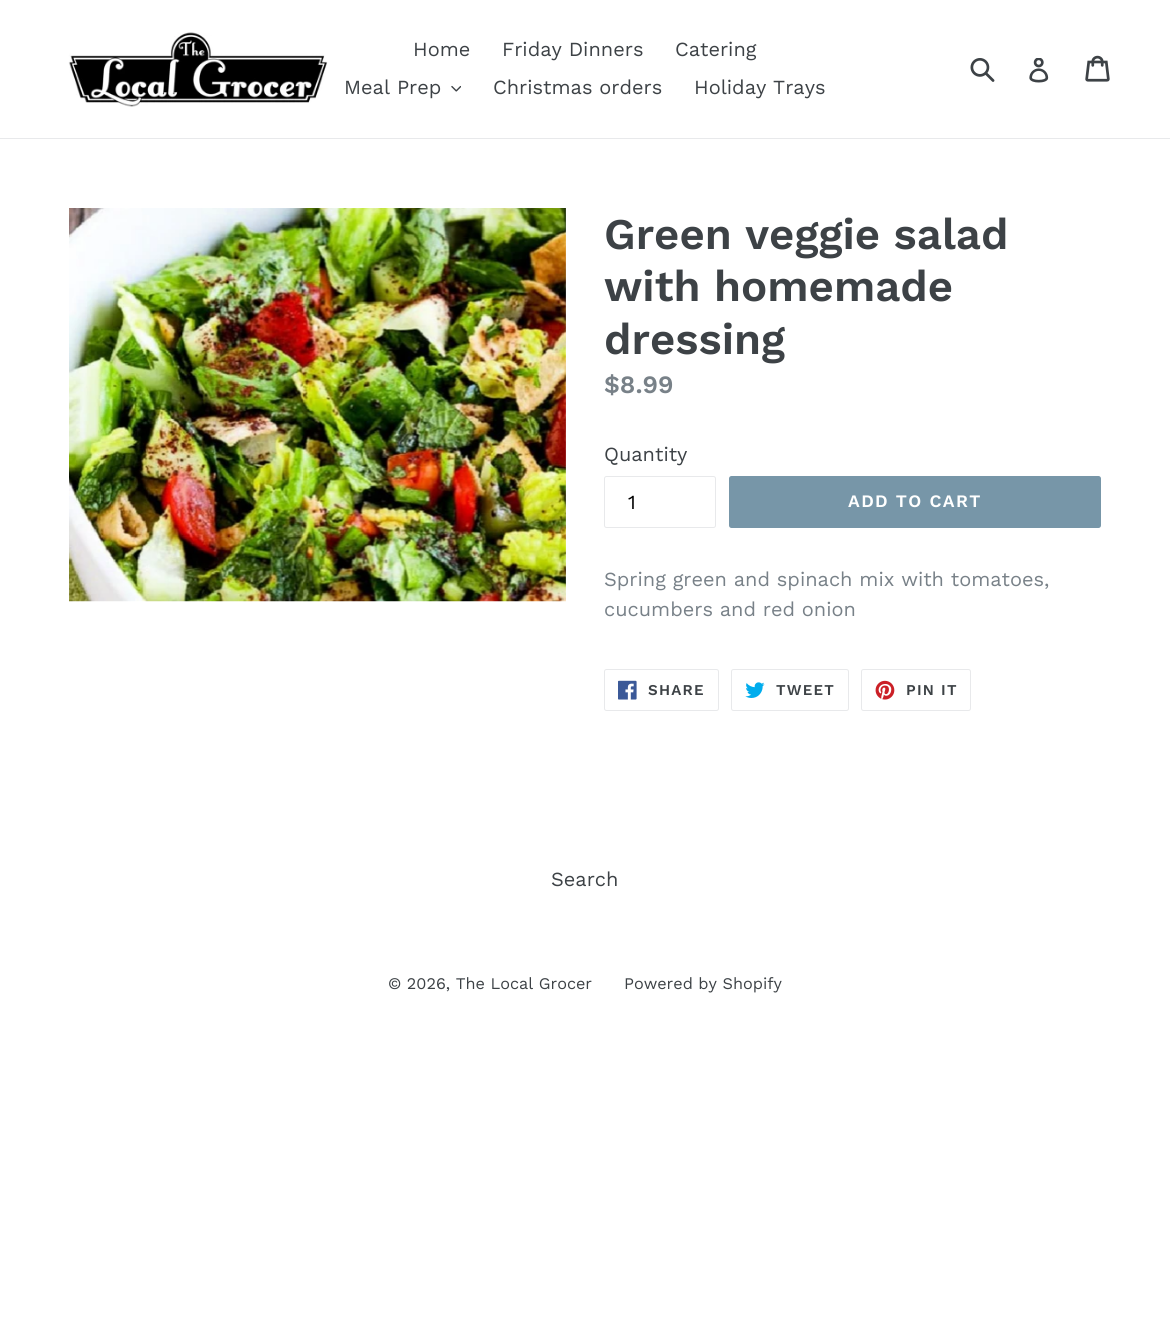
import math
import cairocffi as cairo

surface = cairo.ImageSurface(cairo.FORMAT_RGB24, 1170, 1326)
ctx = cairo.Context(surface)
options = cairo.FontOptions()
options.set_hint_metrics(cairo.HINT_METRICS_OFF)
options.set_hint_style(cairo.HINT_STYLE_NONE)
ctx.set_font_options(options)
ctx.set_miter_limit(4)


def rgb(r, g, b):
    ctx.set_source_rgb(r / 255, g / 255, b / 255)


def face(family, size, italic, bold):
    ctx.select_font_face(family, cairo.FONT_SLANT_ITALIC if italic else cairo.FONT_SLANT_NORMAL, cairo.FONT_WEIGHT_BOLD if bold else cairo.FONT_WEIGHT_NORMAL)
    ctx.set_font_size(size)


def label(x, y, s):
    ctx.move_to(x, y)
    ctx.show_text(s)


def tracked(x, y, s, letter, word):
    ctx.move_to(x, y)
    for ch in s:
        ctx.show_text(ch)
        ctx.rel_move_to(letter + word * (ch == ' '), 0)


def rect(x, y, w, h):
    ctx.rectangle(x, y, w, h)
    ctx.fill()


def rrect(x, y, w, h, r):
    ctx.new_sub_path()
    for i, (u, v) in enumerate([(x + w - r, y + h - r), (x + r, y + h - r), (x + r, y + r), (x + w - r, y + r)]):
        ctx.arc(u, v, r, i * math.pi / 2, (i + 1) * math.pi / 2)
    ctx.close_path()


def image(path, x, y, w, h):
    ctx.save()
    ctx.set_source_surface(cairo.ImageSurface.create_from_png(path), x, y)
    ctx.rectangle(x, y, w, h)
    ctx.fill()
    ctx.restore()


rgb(255, 255, 255)
ctx.paint()
rgb(232, 233, 235)
rect(0, 138, 1170, 1)
image('image0.png', 68, 32, 260, 75)
face('Work Sans', 20, 0, 0)
rgb(61, 66, 70)
label(413, 56, 'Home')
label(502, 56, 'Friday Dinners')
label(675, 56, 'Catering')
label(344, 94, 'Meal Prep')
image('image1.png', 451, 85, 10, 7)
label(493, 94, 'Christmas orders')
label(694, 94, 'Holiday Trays')
image('image2.png', 970, 58, 25, 24)
image('image3.png', 1029, 58, 20, 25)
image('image4.png', 1085, 55, 25, 27)
image('image5.png', 69, 208, 497, 394)
face('Work Sans SemiBold', 43.75, 0, 0)
label(604, 249, 'Green veggie salad')
label(604, 301, 'with homemade')
label(604, 354, 'dressing')
face('Work Sans SemiBold', 25, 0, 0)
rgb(120, 129, 136)
label(604, 393, '$8.99')
face('Work Sans', 20, 0, 0)
rgb(61, 66, 70)
label(604, 461, 'Quantity')
rrect(604.5, 476.5, 111, 51, 2)
rgb(232, 233, 235)
ctx.set_line_width(1)
ctx.stroke()
rgb(0, 0, 0)
label(628, 509, '1')
rgb(119, 150, 168)
rrect(729, 476, 372, 52, 2.5)
ctx.fill()
face('Work Sans SemiBold', 17.5, 0, 0)
rgb(255, 255, 255)
tracked(848, 507, 'ADD TO CART', 1.4, 0)
face('Work Sans', 20, 0, 0)
rgb(120, 129, 136)
label(604, 586, 'Spring green and spinach mix with tomatoes,')
label(604, 616, 'cucumbers and red onion')
rrect(604.5, 669.5, 114, 41, 2)
rgb(232, 233, 235)
ctx.stroke()
image('image6.png', 618, 680, 19, 20)
face('Work Sans SemiBold', 15, 0, 0)
rgb(61, 66, 70)
tracked(648, 695, 'SHARE', 1.25, 0)
rrect(731.5, 669.5, 117, 41, 2)
rgb(232, 233, 235)
ctx.stroke()
image('image7.png', 745, 682, 20, 16)
rgb(61, 66, 70)
tracked(776, 695, 'TWEET', 1.25, 0)
rrect(861.5, 669.5, 109, 41, 2)
rgb(232, 233, 235)
ctx.stroke()
image('image8.png', 875, 680, 20, 20)
rgb(61, 66, 70)
tracked(906, 695, 'PIN IT', 1.25, 0)
face('Work Sans', 20, 0, 0)
label(551, 886, 'Search')
face('Work Sans', 16.25, 0, 0)
label(388, 989, '© 2026, The Local Grocer')
label(624, 989, 'Powered by Shopify')
surface.write_to_png('render.png')
